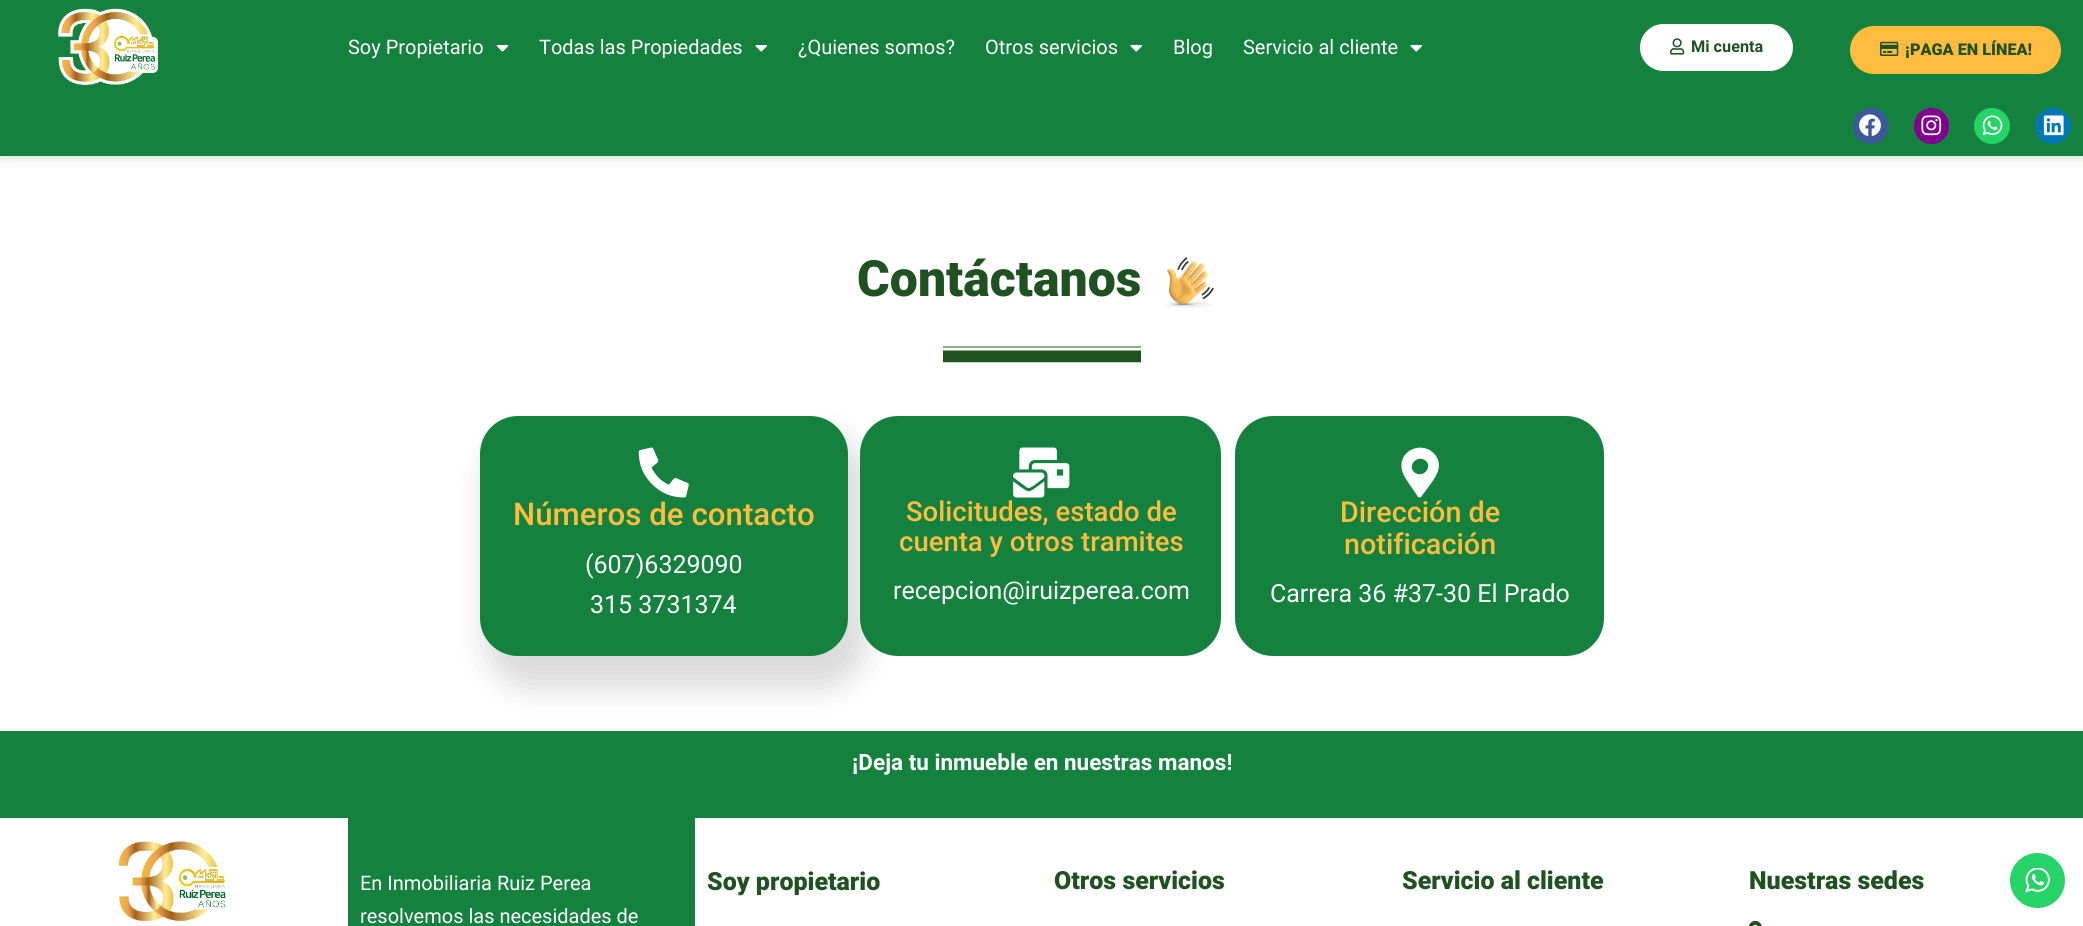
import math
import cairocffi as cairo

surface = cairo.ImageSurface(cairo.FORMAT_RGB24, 2083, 926)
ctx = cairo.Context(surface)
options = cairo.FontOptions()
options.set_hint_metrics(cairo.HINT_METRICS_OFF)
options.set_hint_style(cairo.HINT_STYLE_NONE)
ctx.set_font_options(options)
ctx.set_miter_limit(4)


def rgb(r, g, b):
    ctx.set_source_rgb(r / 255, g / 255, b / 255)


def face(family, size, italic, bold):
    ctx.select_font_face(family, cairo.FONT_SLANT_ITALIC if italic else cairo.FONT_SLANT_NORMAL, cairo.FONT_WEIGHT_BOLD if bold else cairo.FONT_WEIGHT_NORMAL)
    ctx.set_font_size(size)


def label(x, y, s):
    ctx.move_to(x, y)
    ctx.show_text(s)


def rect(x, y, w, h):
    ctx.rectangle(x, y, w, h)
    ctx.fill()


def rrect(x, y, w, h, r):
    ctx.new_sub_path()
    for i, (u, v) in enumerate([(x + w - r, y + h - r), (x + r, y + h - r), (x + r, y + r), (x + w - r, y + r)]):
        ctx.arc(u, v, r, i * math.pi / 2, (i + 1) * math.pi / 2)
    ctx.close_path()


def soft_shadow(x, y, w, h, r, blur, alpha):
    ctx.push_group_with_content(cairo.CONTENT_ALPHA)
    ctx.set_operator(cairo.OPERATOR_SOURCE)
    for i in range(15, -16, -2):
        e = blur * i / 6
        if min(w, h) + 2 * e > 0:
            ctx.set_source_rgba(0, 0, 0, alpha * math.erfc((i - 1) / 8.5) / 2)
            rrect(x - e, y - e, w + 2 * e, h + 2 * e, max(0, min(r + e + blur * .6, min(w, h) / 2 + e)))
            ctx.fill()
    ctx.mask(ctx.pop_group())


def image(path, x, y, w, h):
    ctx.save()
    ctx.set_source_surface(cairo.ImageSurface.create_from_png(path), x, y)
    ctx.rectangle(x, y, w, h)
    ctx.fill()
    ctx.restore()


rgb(255, 255, 255)
ctx.paint()
rgb(140, 170, 137)
soft_shadow(0, 95, 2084, 61, 0, 6, 0.5)
rgb(20, 129, 62)
rect(0, 0, 2083, 156)
rgb(59, 89, 152)
ctx.arc(1871, 126, 18, 0, 2 * math.pi)
ctx.fill()
image('image0.png', 1859, 114, 22, 22)
rgb(130, 0, 143)
rrect(1914, 108, 35, 36, 17.5)
ctx.fill()
image('image1.png', 1921, 115, 21, 21)
rgb(37, 211, 102)
ctx.arc(1992, 126, 18, 0, 2 * math.pi)
ctx.fill()
image('image2.png', 1982, 115, 21, 21)
rgb(0, 119, 181)
ctx.arc(2053, 126, 18, 0, 2 * math.pi)
ctx.fill()
image('image3.png', 2043, 115, 21, 21)
image('image4.png', 58, 8, 100, 77)
face('Roboto', 20, 0, 0)
rgb(255, 255, 255)
label(348, 54, 'Soy Propietario')
image('image5.png', 496, 45, 13, 7)
label(539, 54, 'Todas las Propiedades')
image('image6.png', 755, 45, 12, 7)
label(798, 54, '¿Quienes somos?')
label(985, 54, 'Otros servicios')
image('image6.png', 1130, 45, 12, 7)
label(1173, 54, 'Blog')
label(1243, 54, 'Servicio al cliente')
image('image6.png', 1410, 45, 12, 7)
rrect(1640, 24, 153, 47, 23.5)
ctx.fill()
image('image7.png', 1670, 38, 15, 17)
face('Roboto', 16.25, 0, 1)
rgb(32, 81, 33)
label(1691, 52, 'Mi cuenta')
rgb(255, 188, 62)
rrect(1850, 26, 211, 48, 24)
ctx.fill()
image('image8.png', 1880, 41, 19, 15)
face('Roboto Black', 16.25, 0, 0)
rgb(32, 81, 33)
label(1905, 55, '¡PAGA EN LÍNEA!')
face('Roboto Black', 50, 0, 0)
label(857, 296, 'Contáctanos')
image('image9.png', 1165, 257, 49, 51)
image('image10.png', 943, 346, 198, 17)
rgb(0, 0, 0)
soft_shadow(486, 435, 380, 253, 44, 15.5, 0.15)
rgb(20, 129, 62)
rrect(480, 416, 368, 240, 38)
ctx.fill()
image('image11.png', 638, 447, 51, 51)
face('Roboto Medium', 31.25, 0, 0)
rgb(255, 188, 62)
label(513, 525, 'Números de contacto')
face('Roboto', 25, 0, 0)
rgb(255, 255, 255)
label(585, 573, '(607)6329090')
label(590, 613, '315 3731374')
rgb(20, 129, 62)
rrect(860, 416, 361, 240, 38)
ctx.fill()
image('image12.png', 1013, 447, 57, 51)
face('Roboto Medium', 27.5, 0, 0)
rgb(255, 188, 62)
label(906, 521, 'Solicitudes, estado de')
label(899, 551, 'cuenta y otros tramites')
face('Roboto', 25, 0, 0)
rgb(255, 255, 255)
label(893, 599, 'recepcion@iruizperea.com')
rgb(20, 129, 62)
rrect(1235, 416, 369, 240, 38)
ctx.fill()
rgb(255, 255, 255)
ctx.new_path()
ctx.move_to(1418, 497)
ctx.curve_to(1414, 490, 1403, 477, 1402, 470)
ctx.curve_to(1397, 450, 1424, 439, 1436, 456)
ctx.curve_to(1444, 468, 1434, 479, 1427, 489)
ctx.line_to(1421, 497)
ctx.curve_to(1420, 498, 1419, 497, 1418, 497)
ctx.close_path()
ctx.move_to(1414, 472)
ctx.curve_to(1422, 479, 1433, 468, 1426, 461)
ctx.curve_to(1418, 454, 1407, 465, 1414, 472)
ctx.close_path()
ctx.fill()
face('Roboto Medium', 28.75, 0, 0)
rgb(255, 188, 62)
label(1340, 522, 'Dirección de')
label(1344, 554, 'notificación')
face('Roboto', 25, 0, 0)
rgb(255, 255, 255)
label(1270, 602, 'Carrera 36 #37-30 El Prado')
rgb(20, 129, 62)
rect(0, 731, 2083, 87)
face('Roboto', 22.5, 0, 1)
rgb(255, 255, 255)
label(852, 770, '¡Deja tu inmueble en nuestras manos!')
image('image13.png', 118, 841, 108, 81)
rgb(20, 129, 62)
rect(348, 818, 347, 108)
face('Roboto', 20, 0, 0)
rgb(255, 255, 255)
label(360, 890, 'En Inmobiliaria Ruiz Perea')
label(360, 923, 'resolvemos las necesidades de')
face('Roboto Black', 25, 0, 0)
rgb(32, 81, 33)
label(707, 890, 'Soy propietario')
label(1054, 889, 'Otros servicios')
label(1402, 889, 'Servicio al cliente')
label(1749, 889, 'Nuestras sedes')
image('image14.png', 1749, 920, 13, 6)
rgb(37, 211, 102)
ctx.arc(2037.5, 880.5, 27.5, 0, 2 * math.pi)
ctx.fill()
image('image15.png', 2025, 868, 25, 25)
surface.write_to_png('render.png')
